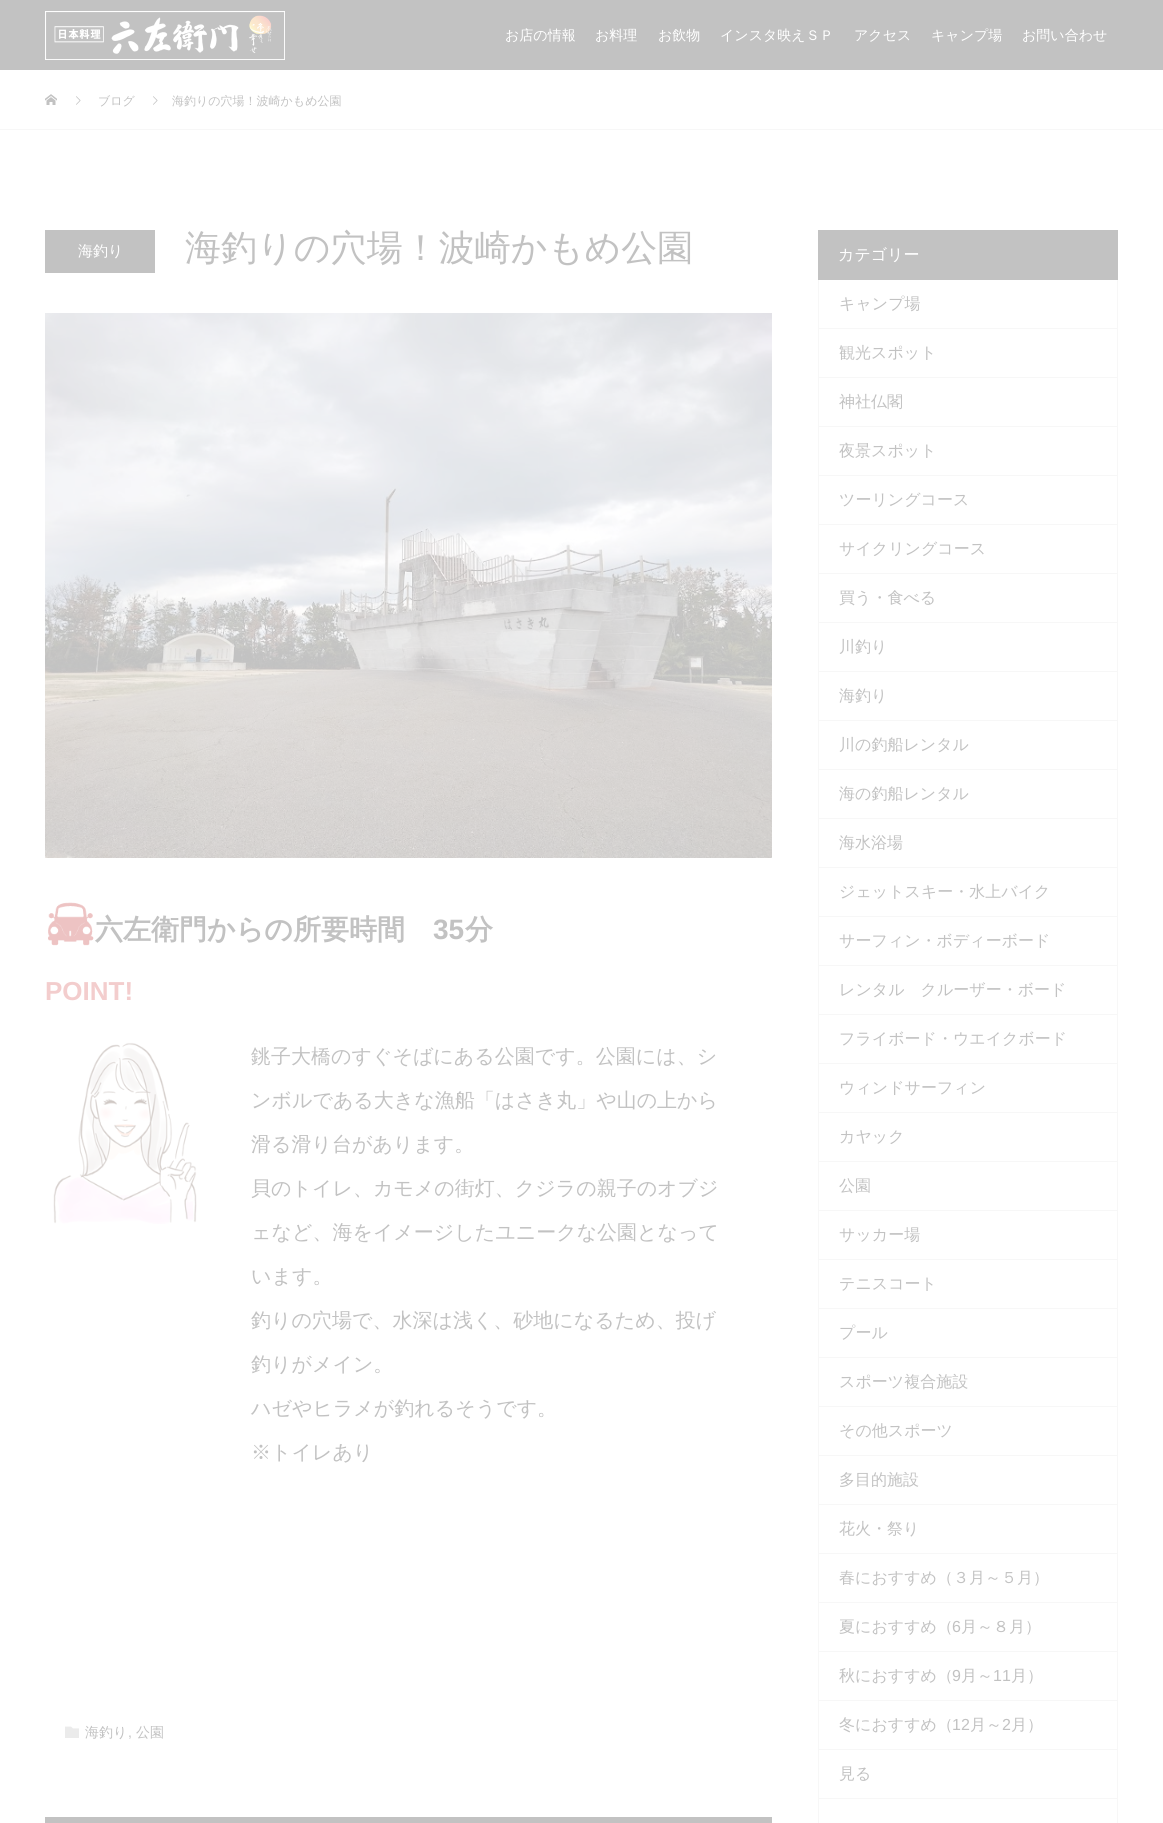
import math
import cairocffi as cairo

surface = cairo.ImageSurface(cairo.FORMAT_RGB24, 1163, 1823)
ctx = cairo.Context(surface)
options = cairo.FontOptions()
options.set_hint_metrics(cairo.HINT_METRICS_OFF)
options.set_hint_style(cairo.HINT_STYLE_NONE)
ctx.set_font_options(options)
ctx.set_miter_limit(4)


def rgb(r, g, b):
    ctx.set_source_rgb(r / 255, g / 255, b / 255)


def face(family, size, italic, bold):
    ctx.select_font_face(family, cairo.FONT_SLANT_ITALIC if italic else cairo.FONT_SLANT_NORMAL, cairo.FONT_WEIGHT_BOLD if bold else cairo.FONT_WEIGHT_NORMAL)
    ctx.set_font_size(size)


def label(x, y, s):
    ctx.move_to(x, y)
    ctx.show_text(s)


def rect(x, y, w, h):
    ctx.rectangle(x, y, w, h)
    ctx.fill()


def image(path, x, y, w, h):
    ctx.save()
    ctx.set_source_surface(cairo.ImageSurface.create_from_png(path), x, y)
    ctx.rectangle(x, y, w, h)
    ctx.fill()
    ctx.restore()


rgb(255, 255, 255)
ctx.paint()
rgb(194, 194, 194)
rect(0, 0, 1163, 70)
image('image0.png', 45, 11, 240, 49)
face('WenQuanYi Zen Hei Medium', 14, 0, 0)
rgb(255, 255, 255)
label(505, 40, 'お店の情報')
label(595, 40, 'お料理')
label(658, 40, 'お飲物')
label(720, 40, 'インスタ映えＳＰ')
label(854, 40, 'アクセス')
label(931, 40, 'キャンプ場')
label(1022, 40, 'お問い合わせ')
rgb(247, 247, 247)
rect(0, 129, 1163, 1)
image('image1.png', 45, 94, 12, 11)
image('image2.png', 76, 96, 5, 9)
face('WenQuanYi Zen Hei Medium', 12, 0, 0)
rgb(194, 194, 194)
label(98, 105, 'ブログ')
image('image2.png', 153, 96, 5, 9)
label(172, 105, '海釣りの穴場！波崎かもめ公園')
rect(45, 230, 110, 43)
face('WenQuanYi Zen Hei Medium', 15, 0, 0)
rgb(255, 255, 255)
label(78, 256, '海釣り')
face('WenQuanYi Zen Hei Medium', 36, 0, 0)
rgb(194, 194, 194)
label(185, 260, '海釣りの穴場！波崎かもめ公園')
image('image3.png', 45, 313, 727, 545)
image('image4.png', 48, 902, 46, 44)
face('WenQuanYi Zen Hei', 28, 0, 1)
label(95, 939, '六左衛門からの所要時間')
face('Liberation Sans', 28, 0, 1)
label(433, 939, '35')
face('WenQuanYi Zen Hei', 28, 0, 1)
label(465, 939, '分')
face('Liberation Sans', 26, 0, 1)
rgb(243, 205, 205)
label(45, 1000, 'POINT!')
image('image5.png', 53, 1042, 144, 182)
face('WenQuanYi Zen Hei Medium', 20, 0, 0)
rgb(194, 194, 194)
label(251, 1063, '銚子大橋のすぐそばにある公園です。公園には、シ')
label(251, 1107, 'ンボルである大きな漁船「はさき丸」や山の上から')
label(251, 1151, '滑る滑り台があります。')
label(251, 1195, '貝のトイレ、カモメの街灯、クジラの親子のオブジ')
label(251, 1239, 'ェなど、海をイメージしたユニークな公園となって')
label(251, 1283, 'います。')
label(251, 1327, '釣りの穴場で、水深は浅く、砂地になるため、投げ')
label(251, 1371, '釣りがメイン。')
label(251, 1415, 'ハゼやヒラメが釣れるそうです。')
label(251, 1459, '※トイレあり')
image('image6.png', 65, 1726, 14, 12)
face('WenQuanYi Zen Hei Medium', 14, 0, 0)
label(85, 1737, '海釣り')
face('Liberation Sans', 14, 0, 0)
label(128, 1737, ',')
face('WenQuanYi Zen Hei Medium', 14, 0, 0)
label(136, 1737, '公園')
rect(45, 1817, 727, 6)
ctx.rectangle(818.5, 279.5, 299, 49)
rgb(247, 247, 247)
ctx.set_line_width(1)
ctx.stroke()
rgb(194, 194, 194)
rect(818, 230, 300, 50)
face('WenQuanYi Zen Hei Medium', 16, 0, 0)
rgb(255, 255, 255)
label(838, 260, 'カテゴリー')
rgb(194, 194, 194)
label(839, 309, 'キャンプ場')
rgb(247, 247, 247)
rect(1117, 329, 1, 1494)
rect(818, 377, 300, 1)
rect(818, 329, 1, 49)
rgb(194, 194, 194)
label(839, 358, '観光スポット')
rgb(247, 247, 247)
rect(818, 426, 300, 1)
rect(818, 378, 1, 49)
rgb(194, 194, 194)
label(839, 407, '神社仏閣')
rgb(247, 247, 247)
rect(818, 475, 300, 1)
rect(818, 427, 1, 49)
rgb(194, 194, 194)
label(839, 456, '夜景スポット')
rgb(247, 247, 247)
rect(818, 524, 300, 1)
rect(818, 476, 1, 49)
rgb(194, 194, 194)
label(839, 505, 'ツーリングコース')
rgb(247, 247, 247)
rect(818, 573, 300, 1)
rect(818, 525, 1, 49)
rgb(194, 194, 194)
label(839, 554, 'サイクリングコース')
rgb(247, 247, 247)
rect(818, 622, 300, 1)
rect(818, 574, 1, 49)
rgb(194, 194, 194)
label(839, 603, '買う・食べる')
rgb(247, 247, 247)
rect(818, 671, 300, 1)
rect(818, 623, 1, 49)
rgb(194, 194, 194)
label(839, 652, '川釣り')
rgb(247, 247, 247)
rect(818, 720, 300, 1)
rect(818, 672, 1, 49)
rgb(194, 194, 194)
label(839, 701, '海釣り')
rgb(247, 247, 247)
rect(818, 769, 300, 1)
rect(818, 721, 1, 49)
rgb(194, 194, 194)
label(839, 750, '川の釣船レンタル')
rgb(247, 247, 247)
rect(818, 818, 300, 1)
rect(818, 770, 1, 49)
rgb(194, 194, 194)
label(839, 799, '海の釣船レンタル')
rgb(247, 247, 247)
rect(818, 867, 300, 1)
rect(818, 819, 1, 49)
rgb(194, 194, 194)
label(839, 848, '海水浴場')
rgb(247, 247, 247)
rect(818, 916, 300, 1)
rect(818, 868, 1, 49)
rgb(194, 194, 194)
label(839, 897, 'ジェットスキー・水上バイク')
rgb(247, 247, 247)
rect(818, 965, 300, 1)
rect(818, 917, 1, 49)
rgb(194, 194, 194)
label(839, 946, 'サーフィン・ボディーボード')
rgb(247, 247, 247)
rect(818, 1014, 300, 1)
rect(818, 966, 1, 49)
rgb(194, 194, 194)
label(839, 995, 'レンタル　クルーザー・ボード')
rgb(247, 247, 247)
rect(818, 1063, 300, 1)
rect(818, 1015, 1, 49)
rgb(194, 194, 194)
label(839, 1044, 'フライボード・ウエイクボード')
rgb(247, 247, 247)
rect(818, 1112, 300, 1)
rect(818, 1064, 1, 49)
rgb(194, 194, 194)
label(839, 1093, 'ウィンドサーフィン')
rgb(247, 247, 247)
rect(818, 1161, 300, 1)
rect(818, 1113, 1, 49)
rgb(194, 194, 194)
label(839, 1142, 'カヤック')
rgb(247, 247, 247)
rect(818, 1210, 300, 1)
rect(818, 1162, 1, 49)
rgb(194, 194, 194)
label(839, 1191, '公園')
rgb(247, 247, 247)
rect(818, 1259, 300, 1)
rect(818, 1211, 1, 49)
rgb(194, 194, 194)
label(839, 1240, 'サッカー場')
rgb(247, 247, 247)
rect(818, 1308, 300, 1)
rect(818, 1260, 1, 49)
rgb(194, 194, 194)
label(839, 1289, 'テニスコート')
rgb(247, 247, 247)
rect(818, 1357, 300, 1)
rect(818, 1309, 1, 49)
rgb(194, 194, 194)
label(839, 1338, 'プール')
rgb(247, 247, 247)
rect(818, 1406, 300, 1)
rect(818, 1358, 1, 49)
rgb(194, 194, 194)
label(839, 1387, 'スポーツ複合施設')
rgb(247, 247, 247)
rect(818, 1455, 300, 1)
rect(818, 1407, 1, 49)
rgb(194, 194, 194)
label(839, 1436, 'その他スポーツ')
rgb(247, 247, 247)
rect(818, 1504, 300, 1)
rect(818, 1456, 1, 49)
rgb(194, 194, 194)
label(839, 1485, '多目的施設')
rgb(247, 247, 247)
rect(818, 1553, 300, 1)
rect(818, 1505, 1, 49)
rgb(194, 194, 194)
label(839, 1534, '花火・祭り')
rgb(247, 247, 247)
rect(818, 1602, 300, 1)
rect(818, 1554, 1, 49)
rgb(194, 194, 194)
label(839, 1583, '春におすすめ（３月～５月）')
rgb(247, 247, 247)
rect(818, 1651, 300, 1)
rect(818, 1603, 1, 49)
rgb(194, 194, 194)
label(839, 1632, '夏におすすめ（')
face('Liberation Sans', 16, 0, 0)
label(952, 1632, '6')
face('WenQuanYi Zen Hei Medium', 16, 0, 0)
label(961, 1632, '月～８月）')
rgb(247, 247, 247)
rect(818, 1700, 300, 1)
rect(818, 1652, 1, 49)
rgb(194, 194, 194)
label(839, 1681, '秋におすすめ（')
face('Liberation Sans', 16, 0, 0)
label(952, 1681, '9')
face('WenQuanYi Zen Hei Medium', 16, 0, 0)
label(961, 1681, '月～')
face('Liberation Sans', 16, 0, 0)
label(993, 1681, '11')
face('WenQuanYi Zen Hei Medium', 16, 0, 0)
label(1011, 1681, '月）')
rgb(247, 247, 247)
rect(818, 1749, 300, 1)
rect(818, 1701, 1, 49)
rgb(194, 194, 194)
label(839, 1730, '冬におすすめ（')
face('Liberation Sans', 16, 0, 0)
label(952, 1730, '12')
face('WenQuanYi Zen Hei Medium', 16, 0, 0)
label(970, 1730, '月～')
face('Liberation Sans', 16, 0, 0)
label(1002, 1730, '2')
face('WenQuanYi Zen Hei Medium', 16, 0, 0)
label(1011, 1730, '月）')
rgb(247, 247, 247)
rect(818, 1798, 300, 1)
rect(818, 1750, 1, 73)
rgb(194, 194, 194)
label(839, 1779, '見る')
surface.write_to_png('render.png')
